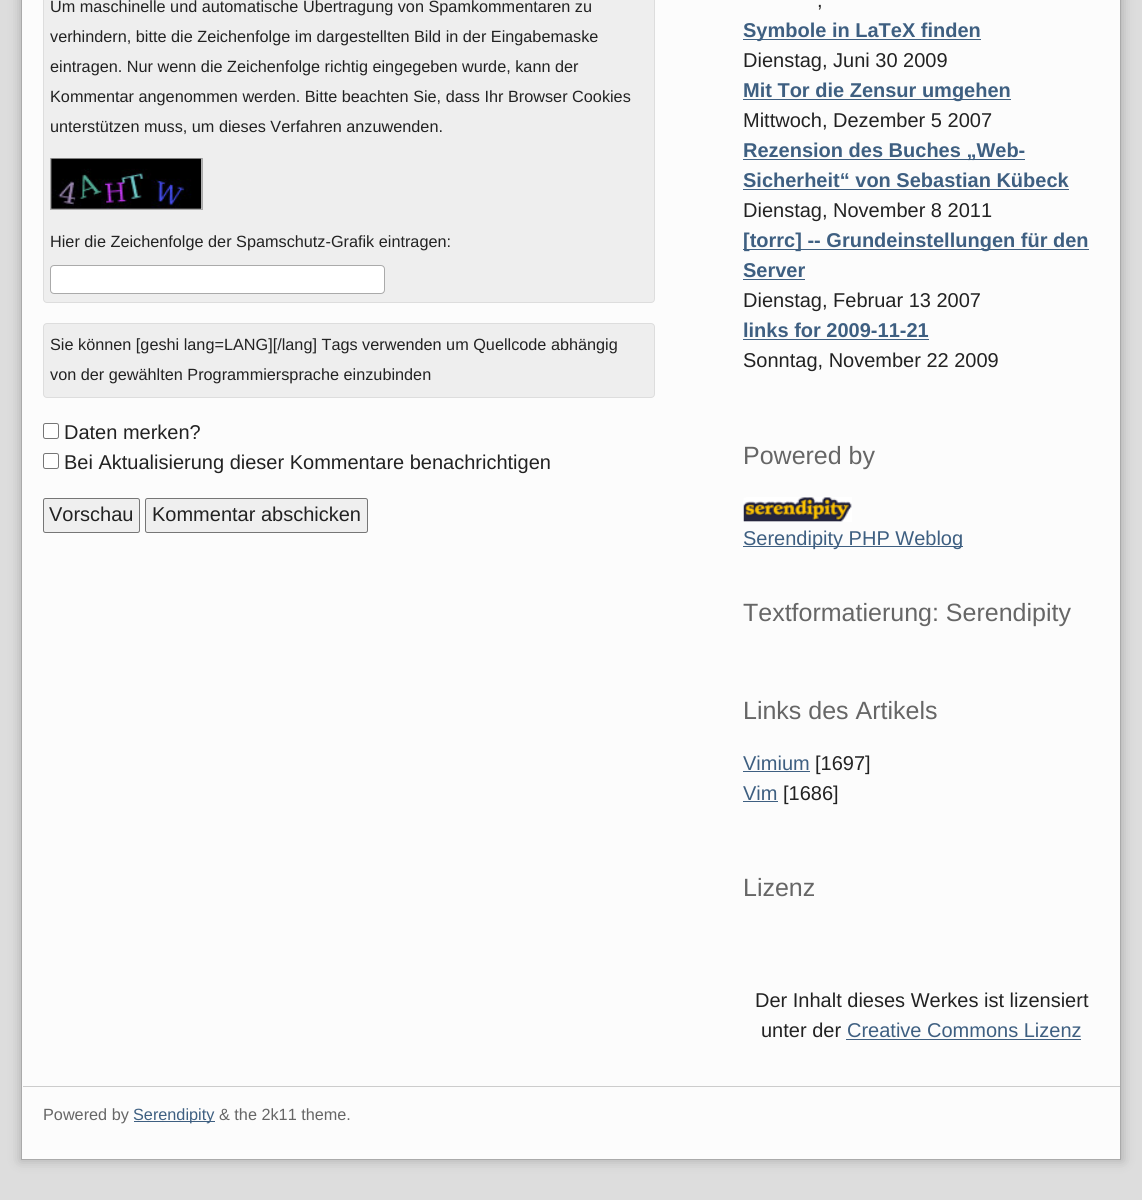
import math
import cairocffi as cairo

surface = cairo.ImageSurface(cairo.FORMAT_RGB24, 1142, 1200)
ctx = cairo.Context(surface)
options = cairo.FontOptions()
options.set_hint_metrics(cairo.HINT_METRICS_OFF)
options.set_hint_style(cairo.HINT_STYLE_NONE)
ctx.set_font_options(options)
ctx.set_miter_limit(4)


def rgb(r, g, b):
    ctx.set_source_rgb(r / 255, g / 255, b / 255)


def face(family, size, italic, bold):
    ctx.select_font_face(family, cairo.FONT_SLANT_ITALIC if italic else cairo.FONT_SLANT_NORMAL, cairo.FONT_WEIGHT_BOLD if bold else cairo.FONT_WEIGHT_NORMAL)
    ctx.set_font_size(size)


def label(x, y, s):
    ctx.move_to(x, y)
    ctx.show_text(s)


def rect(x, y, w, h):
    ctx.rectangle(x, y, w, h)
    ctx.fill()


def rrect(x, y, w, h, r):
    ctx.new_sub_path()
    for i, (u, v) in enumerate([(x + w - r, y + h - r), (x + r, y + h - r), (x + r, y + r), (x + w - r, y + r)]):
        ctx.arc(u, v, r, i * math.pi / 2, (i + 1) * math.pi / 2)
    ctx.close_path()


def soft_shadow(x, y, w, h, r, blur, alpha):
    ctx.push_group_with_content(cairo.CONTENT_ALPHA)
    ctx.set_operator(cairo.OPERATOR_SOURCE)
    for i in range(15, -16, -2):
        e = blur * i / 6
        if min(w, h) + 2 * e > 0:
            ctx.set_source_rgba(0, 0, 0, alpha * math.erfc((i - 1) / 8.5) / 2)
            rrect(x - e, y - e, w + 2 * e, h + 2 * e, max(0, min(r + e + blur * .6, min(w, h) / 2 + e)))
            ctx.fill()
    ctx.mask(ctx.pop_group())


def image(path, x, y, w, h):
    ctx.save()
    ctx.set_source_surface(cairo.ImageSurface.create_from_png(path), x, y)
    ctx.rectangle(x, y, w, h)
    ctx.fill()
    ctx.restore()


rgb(221, 221, 221)
ctx.paint()
rgb(0, 0, 0)
soft_shadow(20, -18, 1103, 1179, 0, 6, 0.2)
rgb(252, 252, 252)
ctx.rectangle(21.5, -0.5, 1099, 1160)
ctx.fill_preserve()
rgb(170, 170, 170)
ctx.set_line_width(1)
ctx.stroke()
rgb(238, 238, 238)
rrect(43.5, -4.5, 611, 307, 3.5)
ctx.fill_preserve()
rgb(221, 221, 221)
ctx.stroke()
face('Liberation Sans', 16.25, 0, 0)
rgb(34, 34, 34)
label(50, 12, 'Um maschinelle und automatische Übertragung von Spamkommentaren zu')
label(50, 42, 'verhindern, bitte die Zeichenfolge im dargestellten Bild in der Eingabemaske')
label(50, 72, 'eintragen. Nur wenn die Zeichenfolge richtig eingegeben wurde, kann der')
label(50, 102, 'Kommentar angenommen werden. Bitte beachten Sie, dass Ihr Browser Cookies')
label(50, 132, 'unterstützen muss, um dieses Verfahren anzuwenden.')
ctx.rectangle(50.5, 158.5, 152, 51)
rgb(170, 170, 170)
ctx.stroke()
image('image0.png', 51, 158, 151, 51)
rgb(34, 34, 34)
label(50, 247, 'Hier die Zeichenfolge der Spamschutz-Grafik eintragen:')
rgb(255, 255, 255)
rrect(50.5, 265.5, 334, 28, 3.5)
ctx.fill_preserve()
rgb(170, 170, 170)
ctx.stroke()
rgb(238, 238, 238)
rrect(43.5, 323.5, 611, 74, 3.5)
ctx.fill_preserve()
rgb(221, 221, 221)
ctx.stroke()
rgb(34, 34, 34)
label(50, 350, 'Sie können [geshi lang=LANG][/lang] Tags verwenden um Quellcode abhängig')
label(50, 380, 'von der gewählten Programmiersprache einzubinden')
rgb(255, 255, 255)
rrect(43.5, 423.5, 15, 15, 2)
ctx.fill_preserve()
rgb(118, 118, 118)
ctx.stroke()
face('Liberation Sans', 20, 0, 0)
rgb(34, 34, 34)
label(64, 439, 'Daten merken?')
rgb(255, 255, 255)
rrect(43.5, 453.5, 15, 15, 2)
ctx.fill_preserve()
rgb(118, 118, 118)
ctx.stroke()
rgb(34, 34, 34)
label(64, 469, 'Bei Aktualisierung dieser Kommentare benachrichtigen')
rgb(239, 239, 239)
rrect(43.5, 498.5, 96, 34, 2)
ctx.fill_preserve()
rgb(118, 118, 118)
ctx.stroke()
rgb(34, 34, 34)
label(49, 521, 'Vorschau')
rgb(239, 239, 239)
rrect(145.5, 498.5, 222, 34, 2)
ctx.fill_preserve()
rgb(118, 118, 118)
ctx.stroke()
rgb(34, 34, 34)
label(152, 521, 'Kommentar abschicken')
label(817, 7, ',')
rgb(62, 95, 129)
rect(743, 39, 238, 1)
face('Liberation Sans', 20, 0, 1)
label(743, 37, 'Symbole in LaTeX finden')
face('Liberation Sans', 20, 0, 0)
rgb(34, 34, 34)
label(743, 67, 'Dienstag, Juni 30 2009')
rgb(62, 95, 129)
rect(743, 99, 268, 1)
face('Liberation Sans', 20, 0, 1)
label(743, 97, 'Mit Tor die Zensur umgehen')
face('Liberation Sans', 20, 0, 0)
rgb(34, 34, 34)
label(743, 127, 'Mittwoch, Dezember 5 2007')
rgb(62, 95, 129)
rect(743, 159, 282, 1)
face('Liberation Sans', 20, 0, 1)
label(743, 157, 'Rezension des Buches „Web-')
label(743, 187, 'Sicherheit“ von Sebastian Kübeck')
rect(743, 189, 326, 1)
face('Liberation Sans', 20, 0, 0)
rgb(34, 34, 34)
label(743, 217, 'Dienstag, November 8 2011')
rgb(62, 95, 129)
rect(743, 249, 346, 1)
face('Liberation Sans', 20, 0, 1)
label(743, 247, '[torrc] -- Grundeinstellungen für den')
label(743, 277, 'Server')
rect(743, 279, 62, 1)
face('Liberation Sans', 20, 0, 0)
rgb(34, 34, 34)
label(743, 307, 'Dienstag, Februar 13 2007')
face('Liberation Sans', 20, 0, 1)
rgb(62, 95, 129)
label(743, 337, 'links for 2009-11-21')
rect(743, 339, 186, 1)
face('Liberation Sans', 20, 0, 0)
rgb(34, 34, 34)
label(743, 367, 'Sonntag, November 22 2009')
face('Liberation Sans', 25, 0, 0)
rgb(102, 102, 102)
label(743, 464, 'Powered by')
image('image1.png', 743, 497, 109, 25)
rgb(62, 95, 129)
rect(743, 546, 220, 1)
face('Liberation Sans', 20, 0, 0)
label(743, 545, 'Serendipity PHP Weblog')
face('Liberation Sans', 25, 0, 0)
rgb(102, 102, 102)
label(743, 621, 'Textformatierung: Serendipity')
label(743, 719, 'Links des Artikels')
face('Liberation Sans', 20, 0, 0)
rgb(62, 95, 129)
label(743, 770, 'Vimium')
rect(743, 771, 67, 1)
rgb(34, 34, 34)
label(815, 770, '[1697]')
rgb(62, 95, 129)
label(743, 800, 'Vim')
rect(743, 801, 35, 1)
rgb(34, 34, 34)
label(783, 800, '[1686]')
face('Liberation Sans', 25, 0, 0)
rgb(102, 102, 102)
label(743, 896, 'Lizenz')
face('Liberation Sans', 20, 0, 0)
rgb(34, 34, 34)
label(755, 1007, 'Der Inhalt dieses Werkes ist lizensiert')
label(761, 1037, 'unter der')
rgb(62, 95, 129)
label(847, 1037, 'Creative Commons Lizenz')
rect(846, 1039, 235, 1)
rgb(204, 204, 204)
rect(23, 1086, 1097, 1)
face('Liberation Sans', 16.25, 0, 0)
rgb(102, 102, 102)
label(43, 1120, 'Powered by')
rgb(62, 95, 129)
rect(134, 1121, 81, 1)
label(133, 1120, 'Serendipity')
rgb(102, 102, 102)
label(219, 1120, '& the 2k11 theme.')
surface.write_to_png('render.png')
